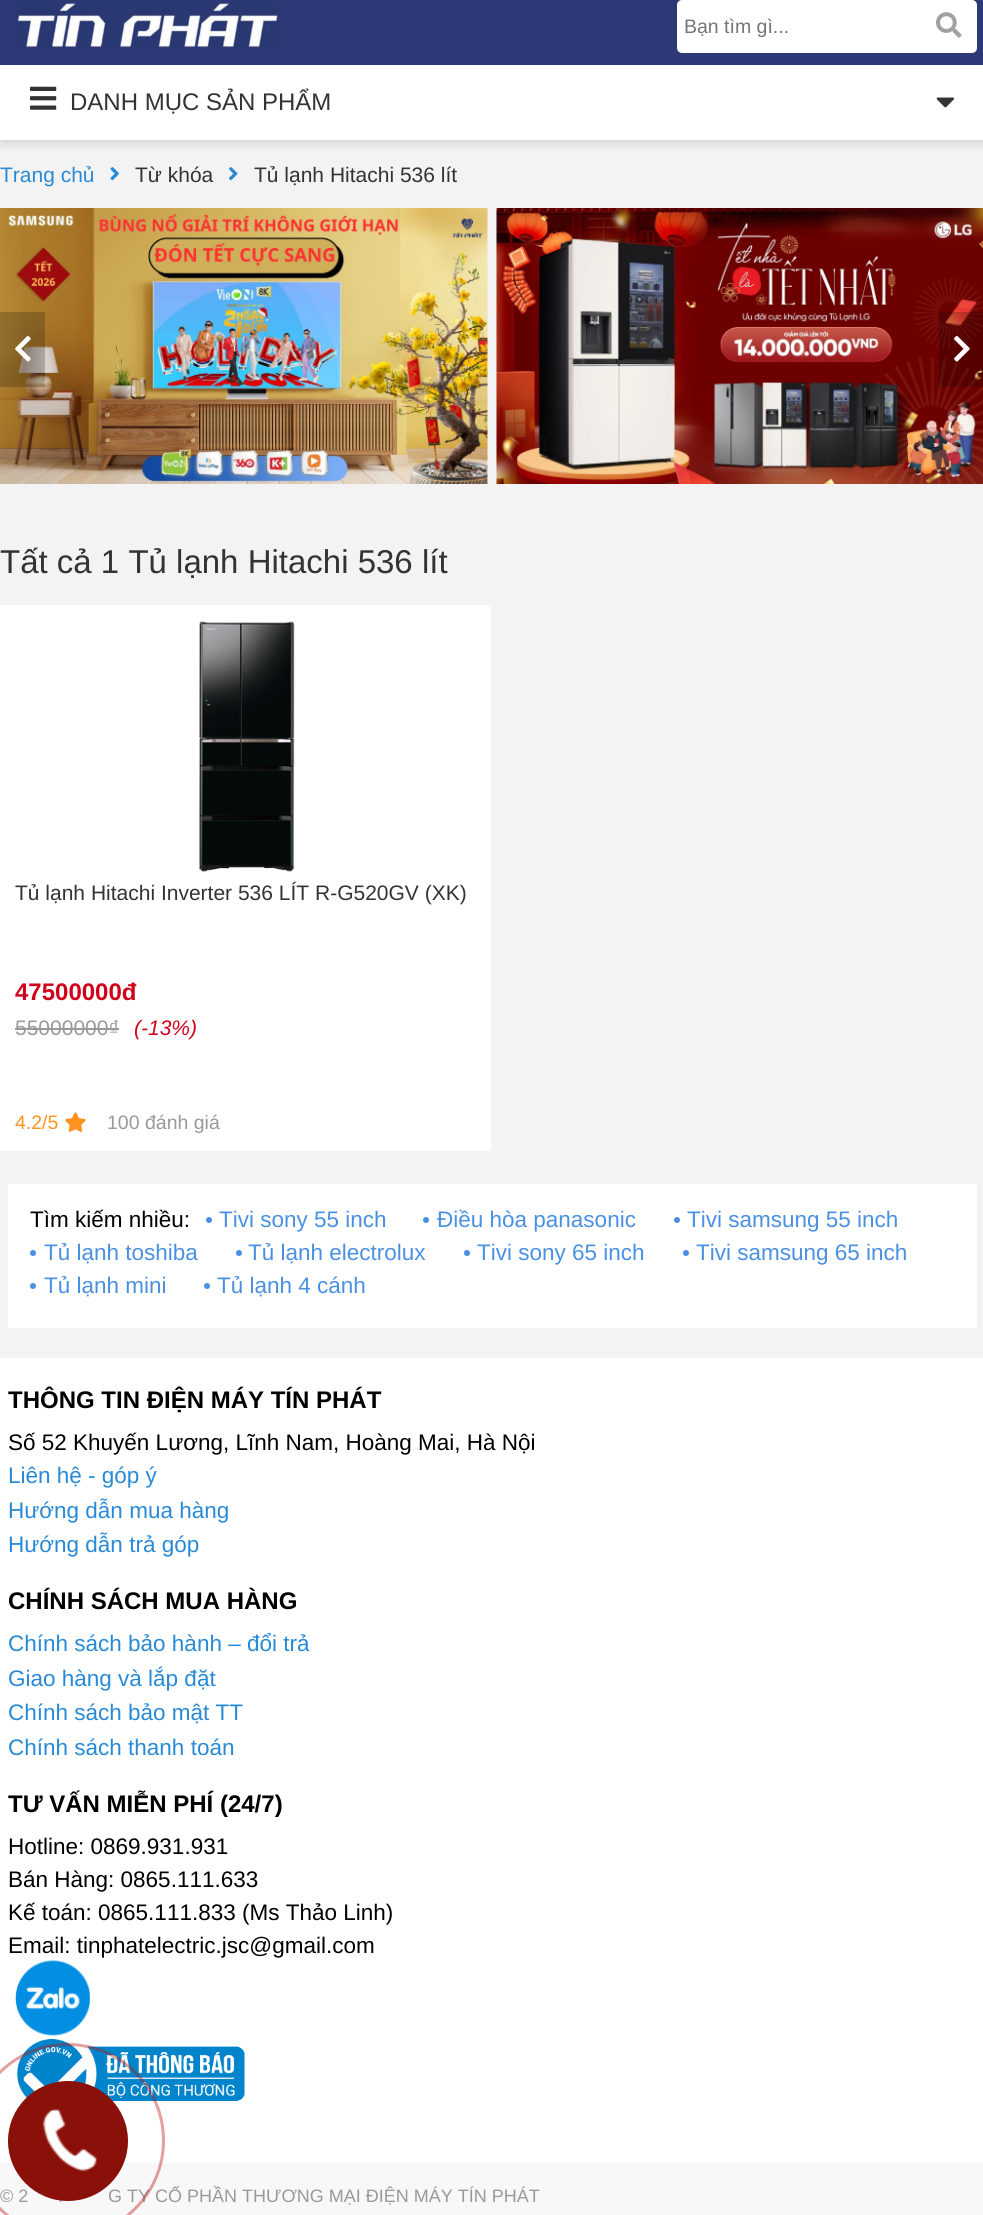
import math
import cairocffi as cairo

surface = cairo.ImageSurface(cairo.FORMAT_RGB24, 983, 2215)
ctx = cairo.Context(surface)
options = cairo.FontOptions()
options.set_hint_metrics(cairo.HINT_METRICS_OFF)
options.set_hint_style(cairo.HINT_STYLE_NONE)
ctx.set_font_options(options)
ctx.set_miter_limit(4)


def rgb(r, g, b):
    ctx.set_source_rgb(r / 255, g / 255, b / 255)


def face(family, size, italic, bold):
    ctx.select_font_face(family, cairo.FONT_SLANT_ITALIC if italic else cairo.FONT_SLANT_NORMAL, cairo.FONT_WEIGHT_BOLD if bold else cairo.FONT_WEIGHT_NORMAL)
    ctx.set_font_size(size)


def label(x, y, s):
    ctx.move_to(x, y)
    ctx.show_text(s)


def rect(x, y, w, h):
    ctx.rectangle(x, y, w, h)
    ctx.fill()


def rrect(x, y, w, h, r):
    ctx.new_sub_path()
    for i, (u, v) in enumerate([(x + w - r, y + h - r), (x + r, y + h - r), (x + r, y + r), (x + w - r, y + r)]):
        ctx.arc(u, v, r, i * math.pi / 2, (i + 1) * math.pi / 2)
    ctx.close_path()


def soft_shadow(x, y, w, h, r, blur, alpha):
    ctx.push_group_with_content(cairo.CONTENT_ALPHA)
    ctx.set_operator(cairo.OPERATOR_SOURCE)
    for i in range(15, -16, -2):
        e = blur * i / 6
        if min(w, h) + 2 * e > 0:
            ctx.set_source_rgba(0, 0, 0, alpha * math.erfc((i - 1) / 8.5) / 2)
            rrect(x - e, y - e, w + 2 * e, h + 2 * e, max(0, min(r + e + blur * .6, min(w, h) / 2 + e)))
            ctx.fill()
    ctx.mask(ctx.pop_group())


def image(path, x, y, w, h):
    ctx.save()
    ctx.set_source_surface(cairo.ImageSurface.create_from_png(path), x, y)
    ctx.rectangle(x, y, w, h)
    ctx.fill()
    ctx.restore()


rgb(243, 243, 243)
ctx.paint()
rgb(225, 225, 225)
soft_shadow(0, 69, 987, 78, 0, 3, 1)
rgb(255, 255, 255)
rect(0, 65, 983, 75)
ctx.save()
ctx.set_fill_rule(cairo.FILL_RULE_EVEN_ODD)
ctx.new_path()
ctx.move_to(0, 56)
ctx.line_to(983, 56)
ctx.line_to(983, 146)
ctx.line_to(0, 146)
ctx.close_path()
ctx.move_to(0, 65)
ctx.line_to(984, 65)
ctx.line_to(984, 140)
ctx.line_to(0, 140)
ctx.close_path()
ctx.clip()
rgb(204, 204, 204)
soft_shadow(-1, 62, 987, 78, 0, 1.5, 1)
ctx.restore()
rgb(45, 56, 119)
rect(0, 0, 983, 65)
image('image0.png', 15, 3, 264, 45)
rgb(255, 255, 255)
rrect(677, 0, 300, 53, 5)
ctx.fill()
face('Liberation Sans', 19.5, 0, 0)
rgb(117, 117, 117)
label(684, 33, 'Bạn tìm gì...')
image('image1.png', 936, 12, 26, 26)
image('image2.png', 30, 86, 27, 24)
face('Liberation Sans', 24, 0, 0)
rgb(51, 51, 51)
label(70, 110, 'DANH MỤC SẢN PHẨM')
image('image3.png', 936, 97, 19, 11)
face('Liberation Sans', 21, 0, 0)
rgb(40, 138, 214)
label(0, 182, 'Trang chủ')
image('image4.png', 110, 167, 9, 14)
rgb(51, 51, 51)
label(135, 182, 'Từ khóa')
image('image5.png', 229, 167, 9, 14)
label(254, 182, 'Tủ lạnh Hitachi 536 lít')
image('image6.png', 0, 208, 488, 276)
image('image7.png', 496, 208, 487, 276)
ctx.set_source_rgba(0, 0, 0, 0.2)
rect(0, 312, 45, 75)
image('image8.png', 15, 336, 16, 26)
rect(939, 312, 44, 75)
image('image9.png', 954, 336, 16, 26)
face('Liberation Sans', 33, 0, 0)
rgb(51, 51, 51)
label(0, 573, 'Tất cả 1 Tủ lạnh Hitachi 536 lít')
rgb(255, 255, 255)
rect(0, 605, 491, 546)
image('image10.png', 199, 621, 96, 251)
face('Liberation Sans', 21, 0, 0)
rgb(51, 51, 51)
label(15, 900, 'Tủ lạnh Hitachi Inverter 536 LÍT R-G520GV (XK)')
face('Liberation Sans', 24, 0, 1)
rgb(208, 2, 27)
label(15, 1000, '47500000đ')
face('Liberation Sans', 21, 0, 0)
rgb(153, 153, 153)
label(15, 1035, '55000000₫')
rect(15, 1028, 104, 2)
face('Liberation Sans', 21, 1, 0)
rgb(208, 2, 27)
label(134, 1035, '(-13%)')
face('Liberation Sans', 19.5, 0, 0)
rgb(255, 147, 33)
label(15, 1129, '4.2/5')
image('image11.png', 65, 1112, 21, 20)
rgb(153, 153, 153)
label(107, 1129, '100 đánh giá')
rgb(255, 255, 255)
rect(8, 1184, 969, 144)
face('Liberation Sans', 22.5, 0, 0)
rgb(0, 0, 0)
label(30, 1227, 'Tìm kiếm nhiều:')
rgb(74, 144, 226)
ctx.new_path()
ctx.arc(209, 1220, 3, 0, 2 * math.pi)
ctx.fill()
label(219, 1227, 'Tivi sony 55 inch')
ctx.new_path()
ctx.arc(426, 1220, 3, 0, 2 * math.pi)
ctx.fill()
label(437, 1227, 'Điều hòa panasonic')
ctx.new_path()
ctx.arc(677, 1220, 3, 0, 2 * math.pi)
ctx.fill()
label(687, 1227, 'Tivi samsung 55 inch')
ctx.new_path()
ctx.arc(33, 1253, 3, 0, 2 * math.pi)
ctx.fill()
label(44, 1260, 'Tủ lạnh toshiba')
ctx.new_path()
ctx.arc(239, 1253, 3, 0, 2 * math.pi)
ctx.fill()
label(248, 1260, 'Tủ lạnh electrolux')
ctx.new_path()
ctx.arc(467, 1253, 3, 0, 2 * math.pi)
ctx.fill()
label(477, 1260, 'Tivi sony 65 inch')
ctx.new_path()
ctx.arc(686, 1253, 3, 0, 2 * math.pi)
ctx.fill()
label(696, 1260, 'Tivi samsung 65 inch')
ctx.new_path()
ctx.arc(33, 1286, 3, 0, 2 * math.pi)
ctx.fill()
label(44, 1293, 'Tủ lạnh mini')
ctx.new_path()
ctx.arc(207, 1286, 3, 0, 2 * math.pi)
ctx.fill()
label(217, 1293, 'Tủ lạnh 4 cánh')
rgb(255, 255, 255)
rect(0, 1358, 983, 805)
face('Liberation Sans', 24, 0, 1)
rgb(0, 0, 0)
label(8, 1408, 'THÔNG TIN ĐIỆN MÁY TÍN PHÁT')
face('Liberation Sans', 22.5, 0, 0)
label(8, 1450, 'Số 52 Khuyến Lương, Lĩnh Nam, Hoàng Mai, Hà Nội')
rgb(40, 138, 214)
label(8, 1483, 'Liên hệ - góp ý')
label(8, 1518, 'Hướng dẫn mua hàng')
label(8, 1552, 'Hướng dẫn trả góp')
face('Liberation Sans', 24, 0, 1)
rgb(0, 0, 0)
label(8, 1609, 'CHÍNH SÁCH MUA HÀNG')
face('Liberation Sans', 22.5, 0, 0)
rgb(40, 138, 214)
label(8, 1651, 'Chính sách bảo hành – đổi trả')
label(8, 1686, 'Giao hàng và lắp đặt')
label(8, 1720, 'Chính sách bảo mật TT')
label(8, 1755, 'Chính sách thanh toán')
face('Liberation Sans', 24, 0, 1)
rgb(0, 0, 0)
label(8, 1812, 'TƯ VẤN MIỄN PHÍ (24/7)')
face('Liberation Sans', 22.5, 0, 0)
label(8, 1854, 'Hotline: 0869.931.931')
label(8, 1887, 'Bán Hàng: 0865.111.633')
label(8, 1920, 'Kế toán: 0865.111.833 (Ms Thảo Linh)')
label(8, 1953, 'Email: tinphatelectric.jsc@gmail.com')
image('image12.png', 17, 2038, 228, 67)
rgb(248, 248, 248)
rect(0, 2163, 983, 52)
face('Liberation Sans', 18, 0, 0)
rgb(153, 153, 153)
label(0, 2202, '© 2')
label(58, 2202, '.')
label(108, 2202, 'G TY CỔ PHẦN THƯƠNG MẠI ĐIỆN MÁY TÍN PHÁT')
image('image13.png', 15, 1960, 75, 76)
ctx.arc(67.5, 2140.5, 96, 0, 2 * math.pi)
ctx.set_source_rgba(0.729, 0.086, 0.047, 0.4)
ctx.set_line_width(3)
ctx.stroke()
rgb(138, 17, 9)
ctx.arc(68, 2141, 60, 0, 2 * math.pi)
ctx.fill()
image('image14.png', 42, 2108, 55, 63)
surface.write_to_png('render.png')
